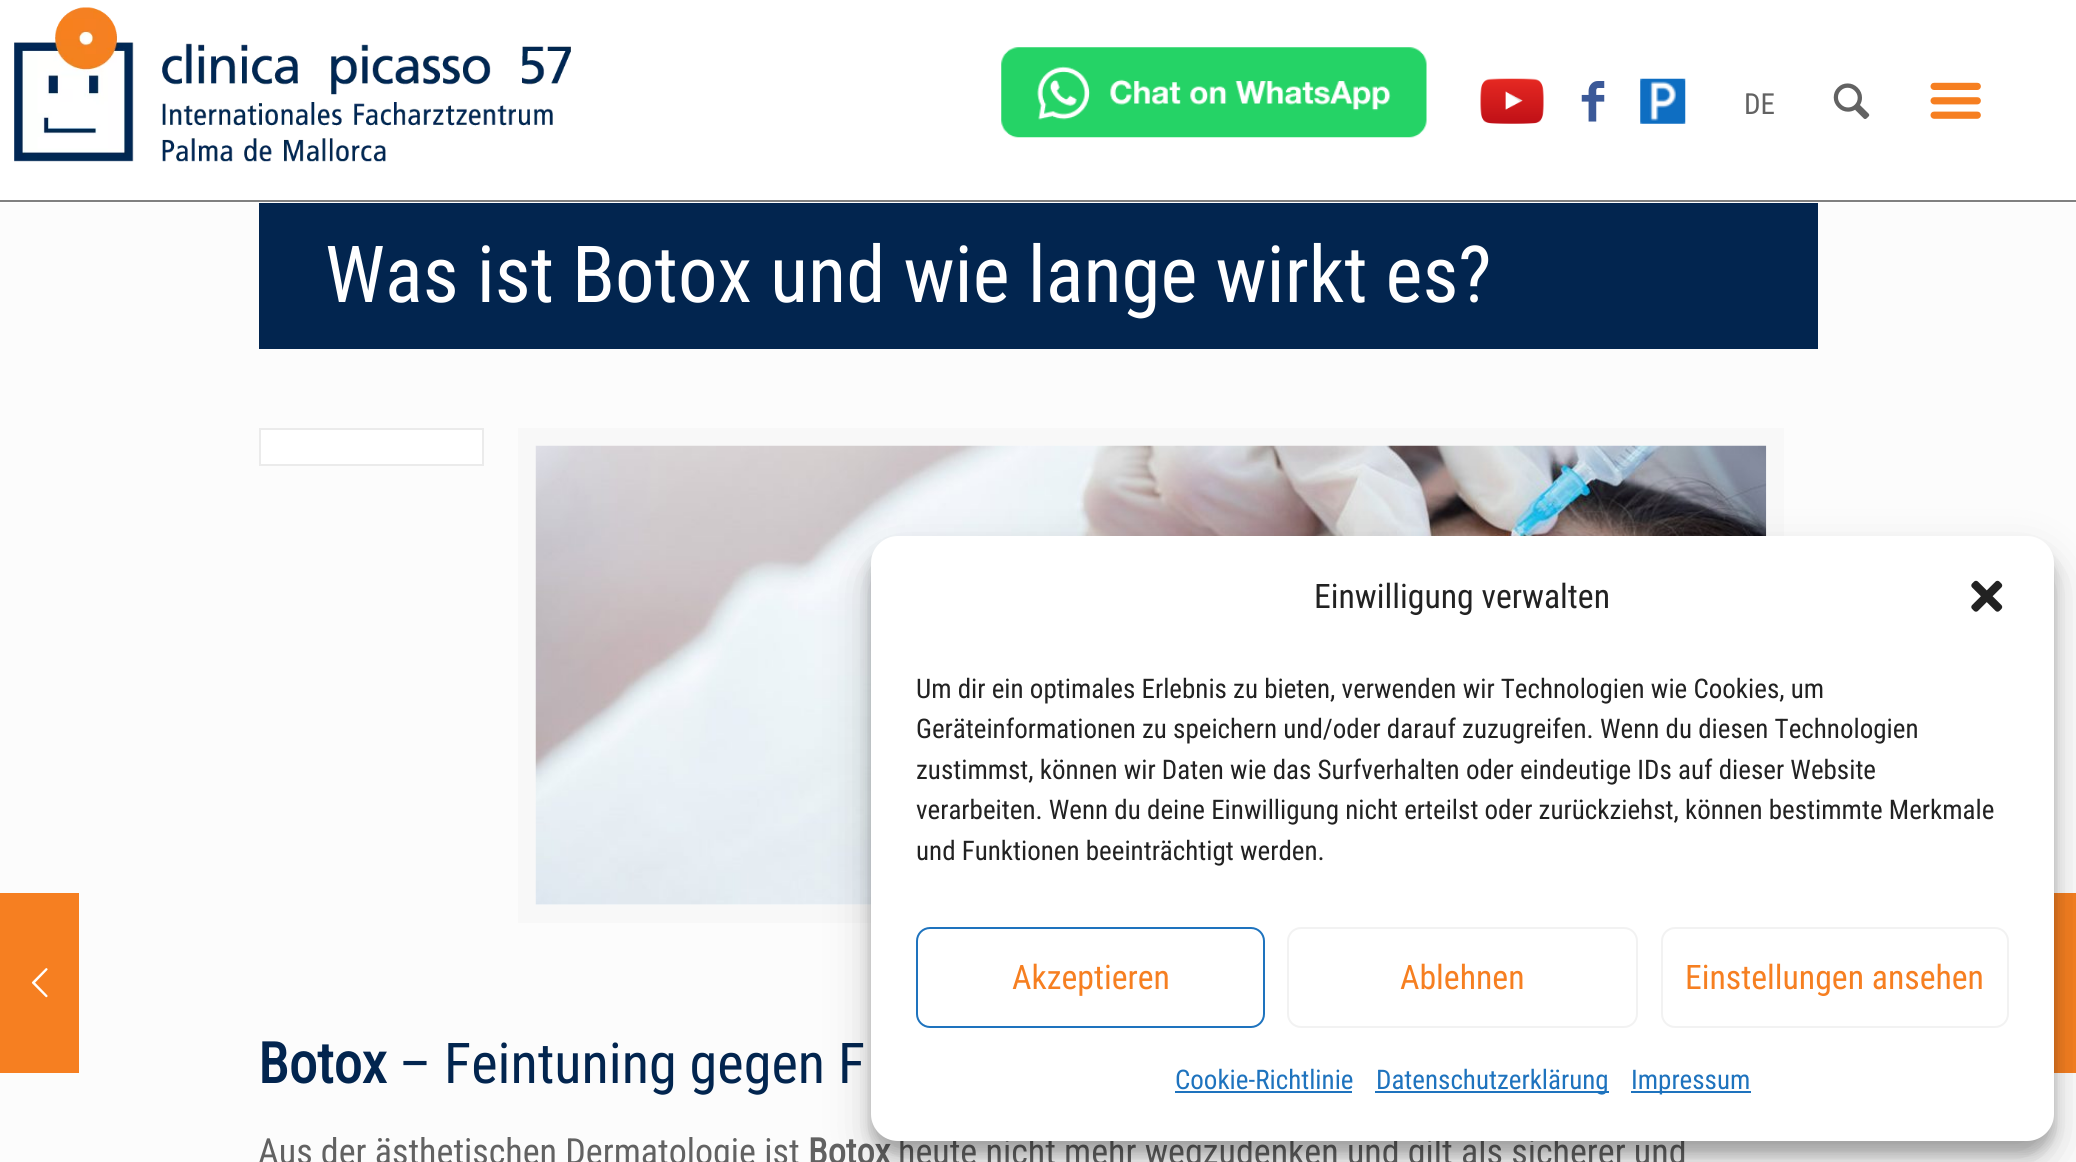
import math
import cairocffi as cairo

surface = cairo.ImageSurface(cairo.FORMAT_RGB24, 2076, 1162)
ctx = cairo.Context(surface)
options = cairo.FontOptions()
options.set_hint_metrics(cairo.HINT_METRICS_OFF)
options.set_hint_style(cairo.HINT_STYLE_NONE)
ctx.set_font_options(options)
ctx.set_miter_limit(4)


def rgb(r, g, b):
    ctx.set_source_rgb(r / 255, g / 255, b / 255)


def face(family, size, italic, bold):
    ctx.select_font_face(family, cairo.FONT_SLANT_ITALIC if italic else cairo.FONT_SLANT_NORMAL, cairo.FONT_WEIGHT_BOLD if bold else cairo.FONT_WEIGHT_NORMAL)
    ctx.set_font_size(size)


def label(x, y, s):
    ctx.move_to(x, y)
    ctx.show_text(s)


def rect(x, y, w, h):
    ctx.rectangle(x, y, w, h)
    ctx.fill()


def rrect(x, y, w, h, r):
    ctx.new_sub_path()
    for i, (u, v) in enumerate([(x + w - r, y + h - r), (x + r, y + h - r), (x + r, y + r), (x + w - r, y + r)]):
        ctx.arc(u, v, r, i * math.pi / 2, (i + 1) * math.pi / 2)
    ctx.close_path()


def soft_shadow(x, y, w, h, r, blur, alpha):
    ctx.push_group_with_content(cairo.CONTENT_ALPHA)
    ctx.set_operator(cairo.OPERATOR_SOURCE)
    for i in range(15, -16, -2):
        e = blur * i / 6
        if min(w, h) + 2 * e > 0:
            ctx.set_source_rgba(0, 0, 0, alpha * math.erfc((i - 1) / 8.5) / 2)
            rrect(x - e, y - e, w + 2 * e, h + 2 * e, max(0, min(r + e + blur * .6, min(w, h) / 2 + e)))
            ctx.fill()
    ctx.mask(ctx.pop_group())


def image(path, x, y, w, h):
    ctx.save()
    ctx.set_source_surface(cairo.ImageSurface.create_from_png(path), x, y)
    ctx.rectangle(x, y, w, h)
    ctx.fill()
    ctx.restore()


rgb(252, 252, 252)
ctx.paint()
rgb(255, 255, 255)
rect(0, 0, 2076, 203)
rgb(128, 128, 128)
rect(0, 200, 2076, 2)
image('image0.png', 14, 7, 557, 155)
image('image1.png', 1001, 47, 426, 91)
image('image2.png', 1480, 78, 64, 46)
image('image3.png', 1581, 81, 24, 41)
image('image4.png', 1640, 78, 46, 46)
face('Roboto Condensed', 29, 0, 0)
rgb(98, 98, 98)
label(1744, 114, 'DE')
image('image5.png', 1833, 83, 37, 36)
image('image6.png', 1930, 82, 51, 37)
rgb(2, 37, 79)
rect(259, 203, 1559, 146)
face('Roboto Condensed', 78.75, 0, 0)
rgb(255, 255, 255)
label(325, 302, 'Was ist Botox und wie lange wirkt es?')
ctx.rectangle(260, 429, 223, 36)
ctx.fill_preserve()
rgb(235, 235, 235)
ctx.stroke()
ctx.rectangle(527, 437, 1248, 477)
rgb(248, 248, 248)
ctx.set_line_width(18)
ctx.stroke()
image('image7.png', 535, 445, 1232, 460)
face('Roboto Condensed', 56.25, 0, 1)
rgb(2, 37, 79)
label(258, 1083, 'Botox')
face('Roboto Condensed', 56.25, 0, 0)
label(399, 1083, '– Feintuning gegen F')
face('Roboto Condensed', 36, 0, 0)
rgb(98, 98, 98)
label(258, 1164, 'Aus der ästhetischen Dermatologie ist')
face('Roboto Condensed', 36, 0, 1)
label(808, 1164, 'Botox')
face('Roboto Condensed', 36, 0, 0)
label(898, 1164, 'heute nicht mehr wegzudenken und gilt als sicherer und')
rgb(246, 127, 33)
rect(0, 893, 79, 180)
image('image8.png', 31, 968, 17, 30)
rect(2054, 893, 22, 180)
rgb(0, 0, 0)
soft_shadow(871, 549, 1183, 605, 27, 7, 0.23)
soft_shadow(871, 558, 1183, 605, 27, 22.5, 0.19)
rgb(255, 255, 255)
rrect(871, 536, 1183, 605, 27)
ctx.fill()
face('Roboto Condensed', 33.75, 0, 0)
rgb(34, 34, 34)
label(1314, 608, 'Einwilligung verwalten')
image('image9.png', 1971, 580, 32, 32)
face('Roboto Condensed', 27, 0, 0)
label(916, 698, 'Um dir ein optimales Erlebnis zu bieten, verwenden wir Technologien wie Cookies, um')
label(916, 738, 'Geräteinformationen zu speichern und/oder darauf zuzugreifen. Wenn du diesen Technologien')
label(916, 779, 'zustimmst, können wir Daten wie das Surfverhalten oder eindeutige IDs auf dieser Website')
label(916, 819, 'verarbeiten. Wenn du deine Einwilligung nicht erteilst oder zurückziehst, können bestimmte Merkmale')
label(916, 860, 'und Funktionen beeinträchtigt werden.')
rrect(917, 928, 347, 99, 13)
rgb(30, 115, 190)
ctx.set_line_width(2)
ctx.stroke()
face('Roboto Condensed', 33.75, 0, 0)
rgb(246, 127, 33)
label(1012, 989, 'Akzeptieren')
rrect(1288, 928, 349, 99, 13)
rgb(242, 242, 242)
ctx.stroke()
rgb(246, 127, 33)
label(1400, 989, 'Ablehnen')
rrect(1662, 928, 346, 99, 13)
rgb(242, 242, 242)
ctx.stroke()
rgb(246, 127, 33)
label(1685, 989, 'Einstellungen ansehen')
face('Roboto Condensed', 27, 0, 0)
rgb(30, 115, 190)
label(1175, 1089, 'Cookie-Richtlinie')
rect(1175, 1091, 177, 2)
rect(1375, 1091, 234, 2)
label(1376, 1089, 'Datenschutzerklärung')
rect(1631, 1091, 120, 2)
label(1631, 1089, 'Impressum')
surface.write_to_png('render.png')
